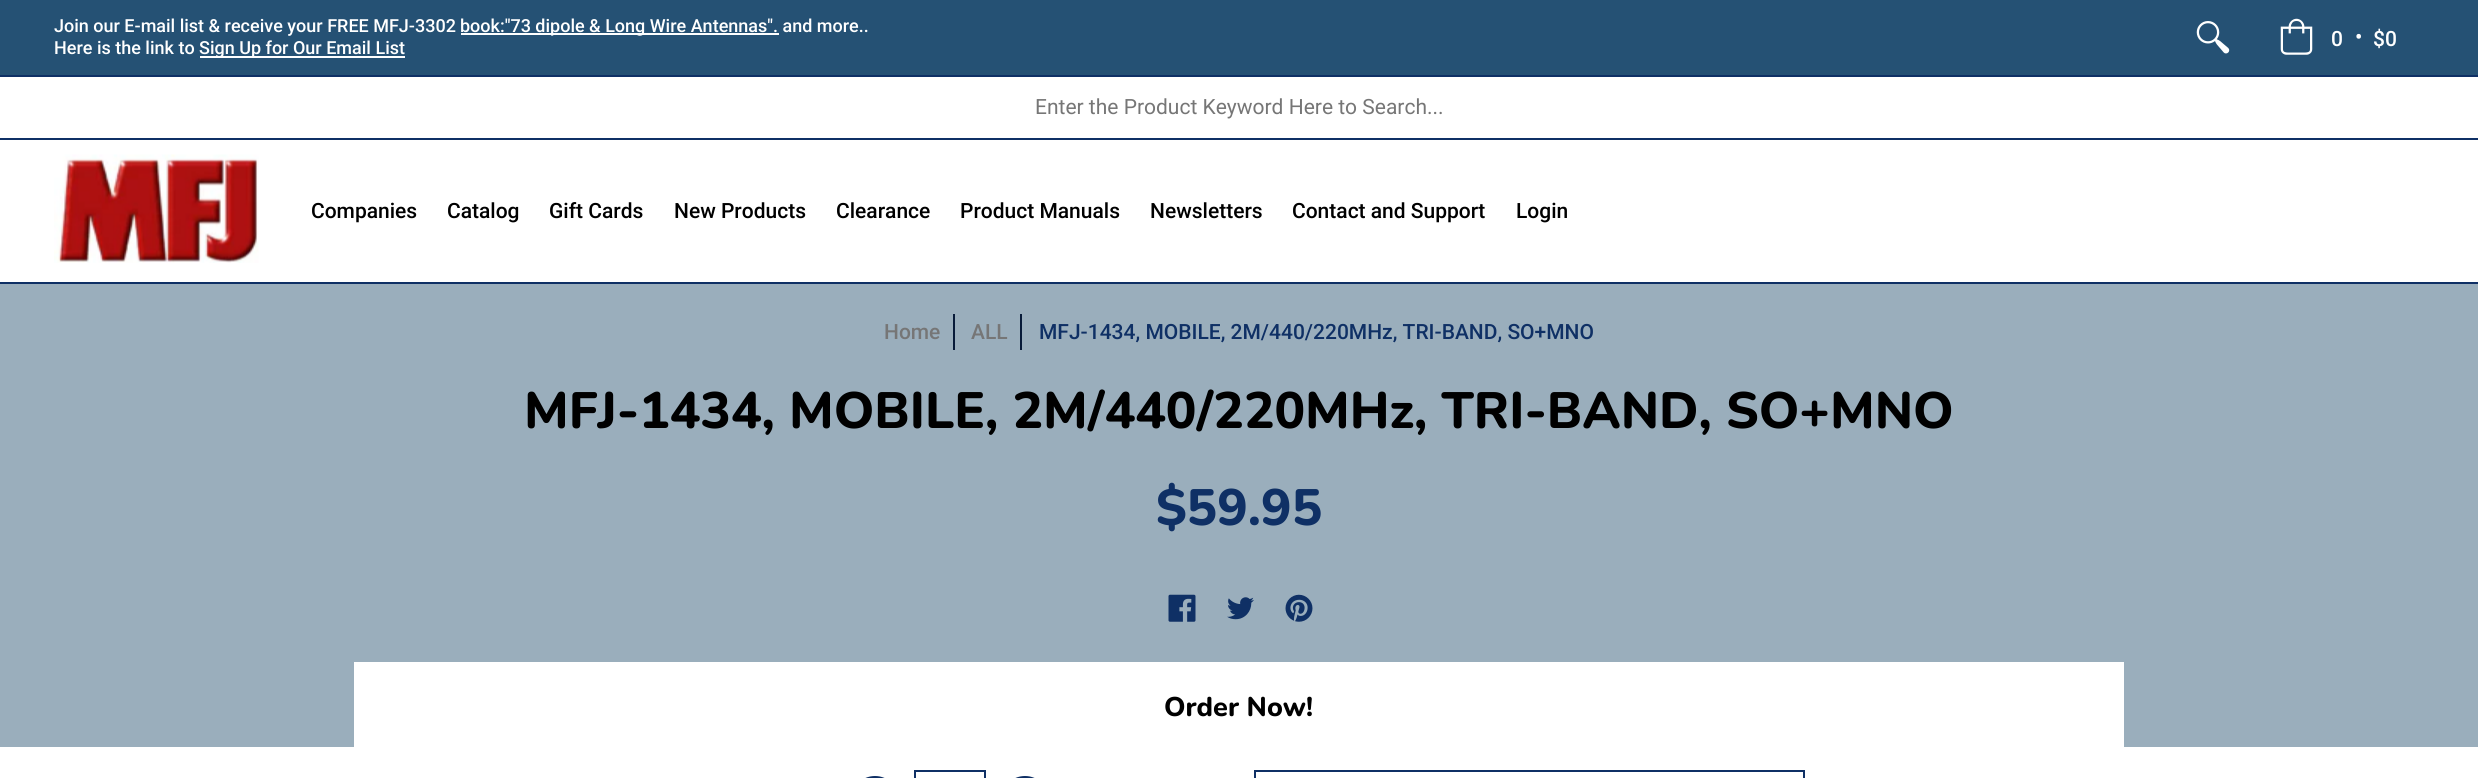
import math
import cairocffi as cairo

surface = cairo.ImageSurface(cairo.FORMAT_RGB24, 2478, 778)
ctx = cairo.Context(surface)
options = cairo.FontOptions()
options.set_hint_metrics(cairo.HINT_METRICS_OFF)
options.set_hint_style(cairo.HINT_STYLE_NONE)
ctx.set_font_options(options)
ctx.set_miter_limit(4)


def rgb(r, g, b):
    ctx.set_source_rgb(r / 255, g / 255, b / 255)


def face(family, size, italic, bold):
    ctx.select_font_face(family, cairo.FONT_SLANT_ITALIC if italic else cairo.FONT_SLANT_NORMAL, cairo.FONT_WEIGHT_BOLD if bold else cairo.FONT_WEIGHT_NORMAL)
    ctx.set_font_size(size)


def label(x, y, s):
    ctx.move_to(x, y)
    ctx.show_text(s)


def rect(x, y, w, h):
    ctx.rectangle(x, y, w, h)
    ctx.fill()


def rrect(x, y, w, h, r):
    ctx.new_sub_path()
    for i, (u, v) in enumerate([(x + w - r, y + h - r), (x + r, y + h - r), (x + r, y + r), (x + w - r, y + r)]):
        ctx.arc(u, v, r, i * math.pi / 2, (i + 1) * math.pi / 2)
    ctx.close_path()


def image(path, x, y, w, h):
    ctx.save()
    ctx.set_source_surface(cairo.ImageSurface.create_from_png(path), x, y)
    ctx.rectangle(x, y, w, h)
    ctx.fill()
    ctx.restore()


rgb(255, 255, 255)
ctx.paint()
rgb(37, 81, 116)
rect(0, 0, 2478, 75)
rgb(15, 48, 101)
rect(0, 75, 2478, 2)
face('Roboto Medium', 18, 0, 0)
rgb(255, 255, 255)
label(54, 32, 'Join our E-mail list & receive your FREE MFJ-3302')
rect(461, 33, 318, 2)
label(460, 32, 'book:"73 dipole & Long Wire Antennas". and more..')
label(54, 54, 'Here is the link to')
rect(200, 56, 205, 2)
label(199, 54, 'Sign Up for Our Email List')
image('image0.png', 2196, 21, 34, 33)
image('image1.png', 2280, 18, 33, 37)
face('Roboto Medium', 21, 0, 0)
label(2331, 46, '0')
label(2355, 44, '•')
label(2373, 46, '$0')
rgb(15, 48, 101)
rect(0, 138, 2478, 2)
face('Roboto', 21, 0, 0)
rgb(118, 118, 118)
label(1035, 114, 'Enter the Product Keyword Here to Search...')
rgb(15, 48, 101)
rect(0, 282, 2478, 2)
image('image2.png', 54, 154, 205, 109)
face('Roboto Medium', 21, 0, 0)
rgb(0, 0, 0)
label(311, 218, 'Companies')
label(447, 218, 'Catalog')
label(549, 218, 'Gift Cards')
label(674, 218, 'New Products')
label(836, 218, 'Clearance')
label(960, 218, 'Product Manuals')
label(1150, 218, 'Newsletters')
label(1292, 218, 'Contact and Support')
label(1516, 218, 'Login')
rgb(154, 174, 188)
rect(0, 284, 2478, 463)
rgb(118, 118, 118)
label(884, 339, 'Home')
rgb(8, 27, 57)
rect(953, 314, 2, 36)
rgb(118, 118, 118)
label(971, 339, 'ALL')
rgb(8, 27, 57)
rect(1020, 314, 2, 36)
rgb(15, 48, 101)
label(1039, 339, 'MFJ-1434, MOBILE, 2M/440/220MHz, TRI-BAND, SO+MNO')
face('Nunito ExtraBold', 51, 0, 0)
rgb(0, 0, 0)
label(524, 428, 'MFJ-1434, MOBILE, 2M/440/220MHz, TRI-BAND, SO+MNO')
rgb(15, 48, 101)
label(1156, 525, '$59.95')
image('image3.png', 1168, 594, 28, 28)
image('image4.png', 1227, 597, 27, 23)
image('image5.png', 1285, 594, 28, 28)
rgb(255, 255, 255)
rect(354, 662, 1770, 85)
face('Nunito ExtraBold', 27, 0, 0)
rgb(0, 0, 0)
label(1164, 716, 'Order Now!')
ctx.rectangle(915, 771, 70, 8)
rgb(15, 48, 101)
ctx.stroke()
rrect(851, 776, 48, 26, 24)
ctx.fill()
rrect(1001, 776, 48, 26, 24)
ctx.fill()
ctx.rectangle(1255, 771, 549, 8)
ctx.stroke()
surface.write_to_png('render.png')
